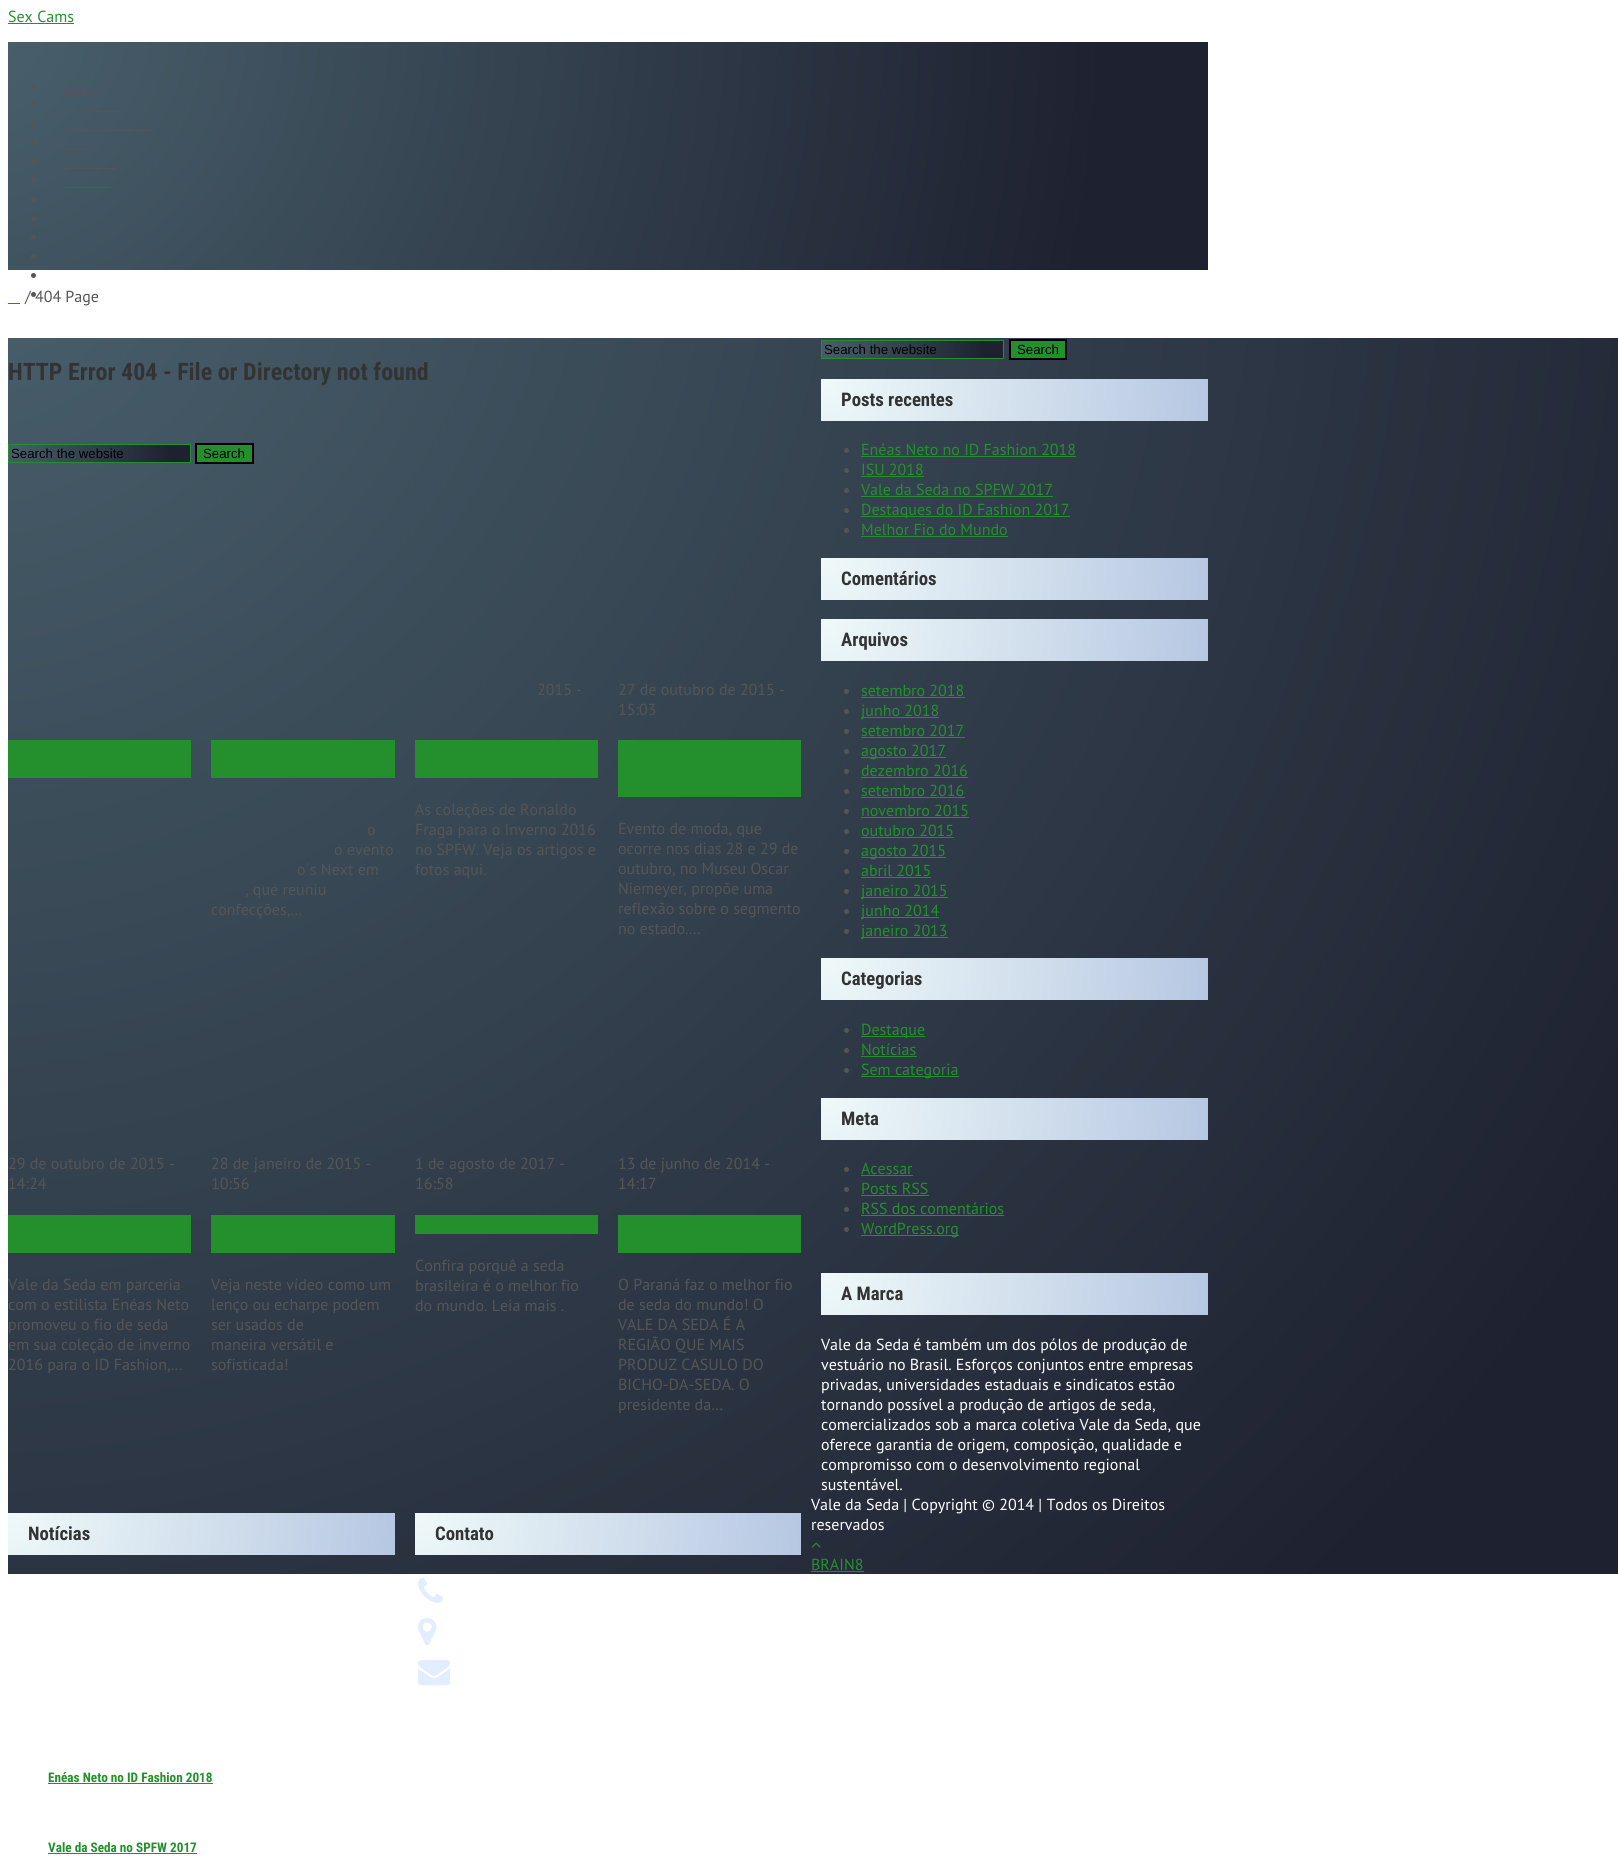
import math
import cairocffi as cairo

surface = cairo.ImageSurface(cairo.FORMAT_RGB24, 1618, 1860)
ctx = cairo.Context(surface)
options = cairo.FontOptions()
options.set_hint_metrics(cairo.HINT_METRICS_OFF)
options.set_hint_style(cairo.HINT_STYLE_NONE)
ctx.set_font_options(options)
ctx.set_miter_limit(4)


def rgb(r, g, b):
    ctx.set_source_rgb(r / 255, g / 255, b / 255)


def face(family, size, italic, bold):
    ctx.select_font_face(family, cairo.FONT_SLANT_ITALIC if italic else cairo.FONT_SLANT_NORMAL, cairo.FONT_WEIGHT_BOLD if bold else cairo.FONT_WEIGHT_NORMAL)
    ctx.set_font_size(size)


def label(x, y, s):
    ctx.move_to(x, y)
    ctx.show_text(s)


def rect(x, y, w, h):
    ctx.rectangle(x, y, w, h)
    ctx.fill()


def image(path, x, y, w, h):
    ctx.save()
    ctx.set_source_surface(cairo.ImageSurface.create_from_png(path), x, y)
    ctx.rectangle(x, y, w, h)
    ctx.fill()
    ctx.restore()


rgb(255, 255, 255)
ctx.paint()
face('PT Sans', 16, 0, 0)
rgb(36, 144, 45)
label(8, 22, 'Sex Cams')
rect(8, 23, 66, 1)
gradient = cairo.RadialGradient(-40, 13, 0, -40, 13, 1274)
gradient.add_color_stop_rgba(0, 0.29, 0.384, 0.431, 1)
gradient.add_color_stop_rgba(0.9, 0.118, 0.129, 0.188, 1)
ctx.set_source(gradient)
rect(8, 42, 1200, 228)
rgb(85, 85, 85)
ctx.new_path()
ctx.arc(33.5, 85.5, 2.5, 0, 2 * math.pi)
ctx.fill()
rect(63, 92, 38, 1)
ctx.arc(33.5, 104.5, 2.5, 0, 2 * math.pi)
ctx.fill()
rect(63, 111, 56, 1)
ctx.arc(33.5, 123.5, 2.5, 0, 2 * math.pi)
ctx.fill()
rect(63, 130, 87, 1)
ctx.arc(33.5, 142.5, 2.5, 0, 2 * math.pi)
ctx.fill()
rect(63, 149, 27, 1)
ctx.arc(33.5, 161.5, 2.5, 0, 2 * math.pi)
ctx.fill()
rect(63, 168, 52, 1)
ctx.arc(33.5, 180.5, 2.5, 0, 2 * math.pi)
ctx.fill()
rect(63, 187, 50, 1)
ctx.arc(33.5, 199.5, 2.5, 0, 2 * math.pi)
ctx.fill()
ctx.arc(33.5, 218.5, 2.5, 0, 2 * math.pi)
ctx.fill()
ctx.arc(33.5, 237.5, 2.5, 0, 2 * math.pi)
ctx.fill()
ctx.arc(33.5, 256.5, 2.5, 0, 2 * math.pi)
ctx.fill()
ctx.arc(33.5, 275.5, 2.5, 0, 2 * math.pi)
ctx.fill()
ctx.arc(33.5, 294.5, 2.5, 0, 2 * math.pi)
ctx.fill()
label(25, 302, '/ 404 Page')
rgb(36, 144, 45)
rect(8, 303, 12, 1)
gradient = cairo.RadialGradient(-57, 179, 0, -57, 179, 2186)
gradient.add_color_stop_rgba(0, 0.29, 0.384, 0.431, 1)
gradient.add_color_stop_rgba(0.9, 0.118, 0.129, 0.188, 1)
ctx.set_source(gradient)
rect(8, 338, 1610, 1236)
face('Roboto Condensed', 24, 0, 1)
rgb(51, 51, 51)
label(8, 380, 'HTTP Error 404 - File or Directory not found')
gradient = cairo.RadialGradient(1.8, 443, 0, 1.8, 443, 189)
gradient.add_color_stop_rgba(0, 0.29, 0.384, 0.431, 1)
gradient.add_color_stop_rgba(0.9, 0.118, 0.129, 0.188, 1)
ctx.set_source(gradient)
rect(9, 445, 181, 17)
ctx.rectangle(8.5, 444.5, 182, 18)
rgb(36, 144, 45)
ctx.set_line_width(1)
ctx.stroke()
face('Liberation Sans', 13.25, 0, 0)
rgb(0, 0, 0)
label(11, 458, 'Search the website')
rgb(36, 144, 45)
ctx.rectangle(196, 444, 57, 19)
ctx.fill_preserve()
rgb(0, 0, 0)
ctx.set_line_width(2)
ctx.stroke()
label(203, 458, 'Search')
rgb(36, 144, 45)
rect(8, 740, 183, 38)
face('PT Sans', 16, 0, 0)
rgb(85, 85, 85)
label(537, 695, '2015 -')
rgb(36, 144, 45)
rect(415, 740, 183, 38)
rgb(85, 85, 85)
label(415, 815, 'As coleções de Ronaldo')
label(415, 835, 'Fraga para o Inverno 2016')
label(415, 855, 'no SPFW. Veja os artigos e')
label(415, 875, 'fotos aqui.')
label(618, 695, '27 de outubro de 2015 -')
label(618, 715, '15:03')
rgb(36, 144, 45)
rect(618, 740, 183, 57)
rgb(85, 85, 85)
label(618, 834, 'Evento de moda, que')
label(618, 854, 'ocorre nos dias 28 e 29 de')
label(618, 874, 'outubro, no Museu Oscar')
label(618, 894, 'Niemeyer, propõe uma')
label(618, 914, 'reflexão sobre o segmento')
label(618, 934, 'no estado.…')
rgb(36, 144, 45)
rect(211, 740, 184, 38)
rgb(85, 85, 85)
label(367, 835, 'o')
label(334, 855, 'o evento')
label(297, 875, 'o´s Next em')
label(245, 895, ', que reuniu')
label(211, 915, 'confecções,…')
label(8, 1169, '29 de outubro de 2015 -')
label(8, 1189, '14:24')
rgb(36, 144, 45)
rect(8, 1215, 183, 38)
rgb(85, 85, 85)
label(8, 1290, 'Vale da Seda em parceria')
label(8, 1310, 'com o estilista Enéas Neto')
label(8, 1330, 'promoveu o fio de seda')
label(8, 1350, 'em sua coleção de inverno')
label(8, 1370, '2016 para o ID Fashion,…')
label(211, 1169, '28 de janeiro de 2015 -')
label(211, 1189, '10:56')
rgb(36, 144, 45)
rect(211, 1215, 184, 38)
rgb(85, 85, 85)
label(211, 1290, 'Veja neste vídeo como um')
label(211, 1310, 'lenço ou echarpe podem')
label(211, 1330, 'ser usados de')
label(211, 1350, 'maneira versátil e')
label(211, 1370, 'sofisticada!')
label(415, 1169, '1 de agosto de 2017 -')
label(415, 1189, '16:58')
rgb(36, 144, 45)
rect(415, 1215, 183, 19)
rgb(85, 85, 85)
label(415, 1271, 'Confira porquê a seda')
label(415, 1291, 'brasileira é o melhor fio')
label(415, 1311, 'do mundo. Leia mais .')
label(618, 1169, '13 de junho de 2014 -')
label(618, 1189, '14:17')
rgb(36, 144, 45)
rect(618, 1215, 183, 38)
rgb(85, 85, 85)
label(618, 1290, 'O Paraná faz o melhor fio')
label(618, 1310, 'de seda do mundo! O')
label(618, 1330, 'VALE DA SEDA É A')
label(618, 1350, 'REGIÃO QUE MAIS')
label(618, 1370, 'PRODUZ CASULO DO')
label(618, 1390, 'BICHO-DA-SEDA. O')
label(618, 1410, 'presidente da…')
gradient = cairo.RadialGradient(815, 339, 0, 815, 339, 189)
gradient.add_color_stop_rgba(0, 0.29, 0.384, 0.431, 1)
gradient.add_color_stop_rgba(0.9, 0.118, 0.129, 0.188, 1)
ctx.set_source(gradient)
rect(822, 341, 181, 17)
ctx.rectangle(821.5, 340.5, 182, 18)
rgb(36, 144, 45)
ctx.set_line_width(1)
ctx.stroke()
face('Liberation Sans', 13.25, 0, 0)
rgb(0, 0, 0)
label(824, 354, 'Search the website')
rgb(36, 144, 45)
ctx.rectangle(1010, 340, 56, 19)
ctx.fill_preserve()
rgb(0, 0, 0)
ctx.set_line_width(2)
ctx.stroke()
label(1017, 354, 'Search')
gradient = cairo.RadialGradient(826, 380, 0, 826, 380, 385)
gradient.add_color_stop_rgba(0, 0.937, 0.976, 0.976, 1)
gradient.add_color_stop_rgba(1, 0.714, 0.78, 0.886, 1)
ctx.set_source(gradient)
rect(821, 379, 387, 42)
face('Roboto Condensed', 18.75, 0, 1)
rgb(51, 51, 51)
label(841, 406, 'Posts recentes')
rgb(85, 85, 85)
ctx.new_path()
ctx.arc(846.5, 450.5, 2.5, 0, 2 * math.pi)
ctx.fill()
face('PT Sans', 16, 0, 0)
rgb(36, 144, 45)
label(861, 455, 'Enéas Neto no ID Fashion 2018')
rect(861, 456, 215, 1)
rgb(85, 85, 85)
ctx.new_path()
ctx.arc(846.5, 470.5, 2.5, 0, 2 * math.pi)
ctx.fill()
rgb(36, 144, 45)
label(861, 475, 'ISU 2018')
rect(861, 476, 63, 1)
rgb(85, 85, 85)
ctx.new_path()
ctx.arc(846.5, 490.5, 2.5, 0, 2 * math.pi)
ctx.fill()
rgb(36, 144, 45)
label(861, 495, 'Vale da Seda no SPFW 2017')
rect(861, 496, 192, 1)
rgb(85, 85, 85)
ctx.new_path()
ctx.arc(846.5, 510.5, 2.5, 0, 2 * math.pi)
ctx.fill()
rgb(36, 144, 45)
rect(861, 516, 209, 1)
label(861, 515, 'Destaques do ID Fashion 2017')
rgb(85, 85, 85)
ctx.new_path()
ctx.arc(846.5, 530.5, 2.5, 0, 2 * math.pi)
ctx.fill()
rgb(36, 144, 45)
label(861, 535, 'Melhor Fio do Mundo')
rect(861, 536, 147, 1)
gradient = cairo.RadialGradient(826, 559, 0, 826, 559, 385)
gradient.add_color_stop_rgba(0, 0.937, 0.976, 0.976, 1)
gradient.add_color_stop_rgba(1, 0.714, 0.78, 0.886, 1)
ctx.set_source(gradient)
rect(821, 558, 387, 42)
face('Roboto Condensed', 18.75, 0, 1)
rgb(51, 51, 51)
label(841, 585, 'Comentários')
gradient = cairo.RadialGradient(826, 620, 0, 826, 620, 385)
gradient.add_color_stop_rgba(0, 0.937, 0.976, 0.976, 1)
gradient.add_color_stop_rgba(1, 0.714, 0.78, 0.886, 1)
ctx.set_source(gradient)
rect(821, 619, 387, 42)
rgb(51, 51, 51)
label(841, 646, 'Arquivos')
rgb(85, 85, 85)
ctx.new_path()
ctx.arc(846.5, 691.5, 2.5, 0, 2 * math.pi)
ctx.fill()
face('PT Sans', 16, 0, 0)
rgb(36, 144, 45)
label(861, 696, 'setembro 2018')
rect(861, 697, 104, 1)
rgb(85, 85, 85)
ctx.new_path()
ctx.arc(846.5, 711.5, 2.5, 0, 2 * math.pi)
ctx.fill()
rgb(36, 144, 45)
rect(861, 717, 78, 1)
label(861, 716, 'junho 2018')
rgb(85, 85, 85)
ctx.new_path()
ctx.arc(846.5, 731.5, 2.5, 0, 2 * math.pi)
ctx.fill()
rgb(36, 144, 45)
label(861, 736, 'setembro 2017')
rect(861, 737, 104, 1)
rgb(85, 85, 85)
ctx.new_path()
ctx.arc(846.5, 751.5, 2.5, 0, 2 * math.pi)
ctx.fill()
rgb(36, 144, 45)
rect(861, 757, 85, 1)
label(861, 756, 'agosto 2017')
rgb(85, 85, 85)
ctx.new_path()
ctx.arc(846.5, 771.5, 2.5, 0, 2 * math.pi)
ctx.fill()
rgb(36, 144, 45)
label(861, 776, 'dezembro 2016')
rect(861, 777, 107, 1)
rgb(85, 85, 85)
ctx.new_path()
ctx.arc(846.5, 791.5, 2.5, 0, 2 * math.pi)
ctx.fill()
rgb(36, 144, 45)
label(861, 796, 'setembro 2016')
rect(861, 797, 104, 1)
rgb(85, 85, 85)
ctx.new_path()
ctx.arc(846.5, 811.5, 2.5, 0, 2 * math.pi)
ctx.fill()
rgb(36, 144, 45)
label(861, 816, 'novembro 2015')
rect(861, 817, 108, 1)
rgb(85, 85, 85)
ctx.new_path()
ctx.arc(846.5, 831.5, 2.5, 0, 2 * math.pi)
ctx.fill()
rgb(36, 144, 45)
label(861, 836, 'outubro 2015')
rect(861, 837, 93, 1)
rgb(85, 85, 85)
ctx.new_path()
ctx.arc(846.5, 851.5, 2.5, 0, 2 * math.pi)
ctx.fill()
rgb(36, 144, 45)
rect(861, 857, 85, 1)
label(861, 856, 'agosto 2015')
rgb(85, 85, 85)
ctx.new_path()
ctx.arc(846.5, 871.5, 2.5, 0, 2 * math.pi)
ctx.fill()
rgb(36, 144, 45)
label(861, 876, 'abril 2015')
rect(861, 877, 70, 1)
rgb(85, 85, 85)
ctx.new_path()
ctx.arc(846.5, 891.5, 2.5, 0, 2 * math.pi)
ctx.fill()
rgb(36, 144, 45)
rect(861, 897, 87, 1)
label(861, 896, 'janeiro 2015')
rgb(85, 85, 85)
ctx.new_path()
ctx.arc(846.5, 911.5, 2.5, 0, 2 * math.pi)
ctx.fill()
rgb(36, 144, 45)
rect(861, 917, 78, 1)
label(861, 916, 'junho 2014')
rgb(85, 85, 85)
ctx.new_path()
ctx.arc(846.5, 931.5, 2.5, 0, 2 * math.pi)
ctx.fill()
rgb(36, 144, 45)
rect(861, 937, 87, 1)
label(861, 936, 'janeiro 2013')
gradient = cairo.RadialGradient(826, 959, 0, 826, 959, 385)
gradient.add_color_stop_rgba(0, 0.937, 0.976, 0.976, 1)
gradient.add_color_stop_rgba(1, 0.714, 0.78, 0.886, 1)
ctx.set_source(gradient)
rect(821, 958, 387, 42)
face('Roboto Condensed', 18.75, 0, 1)
rgb(51, 51, 51)
label(841, 985, 'Categorias')
rgb(85, 85, 85)
ctx.new_path()
ctx.arc(846.5, 1030.5, 2.5, 0, 2 * math.pi)
ctx.fill()
rgb(36, 144, 45)
rect(861, 1036, 64, 1)
face('PT Sans', 16, 0, 0)
label(861, 1035, 'Destaque')
rgb(85, 85, 85)
ctx.new_path()
ctx.arc(846.5, 1050.5, 2.5, 0, 2 * math.pi)
ctx.fill()
rgb(36, 144, 45)
label(861, 1055, 'Notícias')
rect(861, 1056, 56, 1)
rgb(85, 85, 85)
ctx.new_path()
ctx.arc(846.5, 1070.5, 2.5, 0, 2 * math.pi)
ctx.fill()
rgb(36, 144, 45)
rect(861, 1076, 98, 1)
label(861, 1075, 'Sem categoria')
gradient = cairo.RadialGradient(826, 1099, 0, 826, 1099, 385)
gradient.add_color_stop_rgba(0, 0.937, 0.976, 0.976, 1)
gradient.add_color_stop_rgba(1, 0.714, 0.78, 0.886, 1)
ctx.set_source(gradient)
rect(821, 1098, 387, 42)
face('Roboto Condensed', 18.75, 0, 1)
rgb(51, 51, 51)
label(841, 1125, 'Meta')
rgb(85, 85, 85)
ctx.new_path()
ctx.arc(846.5, 1169.5, 2.5, 0, 2 * math.pi)
ctx.fill()
face('PT Sans', 16, 0, 0)
rgb(36, 144, 45)
label(861, 1174, 'Acessar')
rect(861, 1175, 52, 1)
rgb(85, 85, 85)
ctx.new_path()
ctx.arc(846.5, 1189.5, 2.5, 0, 2 * math.pi)
ctx.fill()
rgb(36, 144, 45)
label(861, 1194, 'Posts RSS')
rect(861, 1195, 68, 1)
rgb(85, 85, 85)
ctx.new_path()
ctx.arc(846.5, 1209.5, 2.5, 0, 2 * math.pi)
ctx.fill()
rgb(36, 144, 45)
label(861, 1214, 'RSS dos comentários')
rect(861, 1215, 143, 1)
rgb(85, 85, 85)
ctx.new_path()
ctx.arc(846.5, 1229.5, 2.5, 0, 2 * math.pi)
ctx.fill()
rgb(36, 144, 45)
rect(861, 1235, 98, 1)
label(861, 1234, 'WordPress.org')
gradient = cairo.RadialGradient(826, 1274, 0, 826, 1274, 385)
gradient.add_color_stop_rgba(0, 0.937, 0.976, 0.976, 1)
gradient.add_color_stop_rgba(1, 0.714, 0.78, 0.886, 1)
ctx.set_source(gradient)
rect(821, 1273, 387, 42)
face('Roboto Condensed', 18.75, 0, 1)
rgb(51, 51, 51)
label(841, 1300, 'A Marca')
face('PT Sans', 16, 0, 0)
rgb(255, 255, 255)
label(821, 1350, 'Vale da Seda é também um dos pólos de produção de')
label(821, 1370, 'vestuário no Brasil. Esforços conjuntos entre empresas')
label(821, 1390, 'privadas, universidades estaduais e sindicatos estão')
label(821, 1410, 'tornando possível a produção de artigos de seda,')
label(821, 1430, 'comercializados sob a marca coletiva Vale da Seda, que')
label(821, 1450, 'oferece garantia de origem, composição, qualidade e')
label(821, 1470, 'compromisso com o desenvolvimento regional')
label(821, 1490, 'sustentável.')
gradient = cairo.RadialGradient(13, 1514, 0, 13, 1514, 385)
gradient.add_color_stop_rgba(0, 0.937, 0.976, 0.976, 1)
gradient.add_color_stop_rgba(1, 0.714, 0.78, 0.886, 1)
ctx.set_source(gradient)
rect(8, 1513, 387, 42)
face('Roboto Condensed', 18.75, 0, 1)
rgb(51, 51, 51)
label(28, 1540, 'Notícias')
face('Roboto Condensed', 13.25, 0, 1)
rgb(36, 144, 45)
label(48, 1782, 'Enéas Neto no ID Fashion 2018')
rect(48, 1783, 165, 1)
label(48, 1852, 'Vale da Seda no SPFW 2017')
rect(48, 1853, 149, 1)
gradient = cairo.RadialGradient(420, 1514, 0, 420, 1514, 384)
gradient.add_color_stop_rgba(0, 0.937, 0.976, 0.976, 1)
gradient.add_color_stop_rgba(1, 0.714, 0.78, 0.886, 1)
ctx.set_source(gradient)
rect(415, 1513, 386, 42)
face('Roboto Condensed', 18.75, 0, 1)
rgb(51, 51, 51)
label(435, 1540, 'Contato')
image('image0.png', 418, 1578, 25, 25)
image('image1.png', 418, 1618, 19, 28)
image('image2.png', 418, 1660, 32, 26)
face('PT Sans', 16, 0, 0)
rgb(255, 255, 255)
label(811, 1510, 'Vale da Seda | Copyright © 2014 | Todos os Direitos')
label(811, 1530, 'reservados')
image('image3.png', 811, 1542, 10, 6)
rgb(36, 144, 45)
label(811, 1570, 'BRAIN8')
rect(811, 1571, 53, 1)
surface.write_to_png('render.png')
